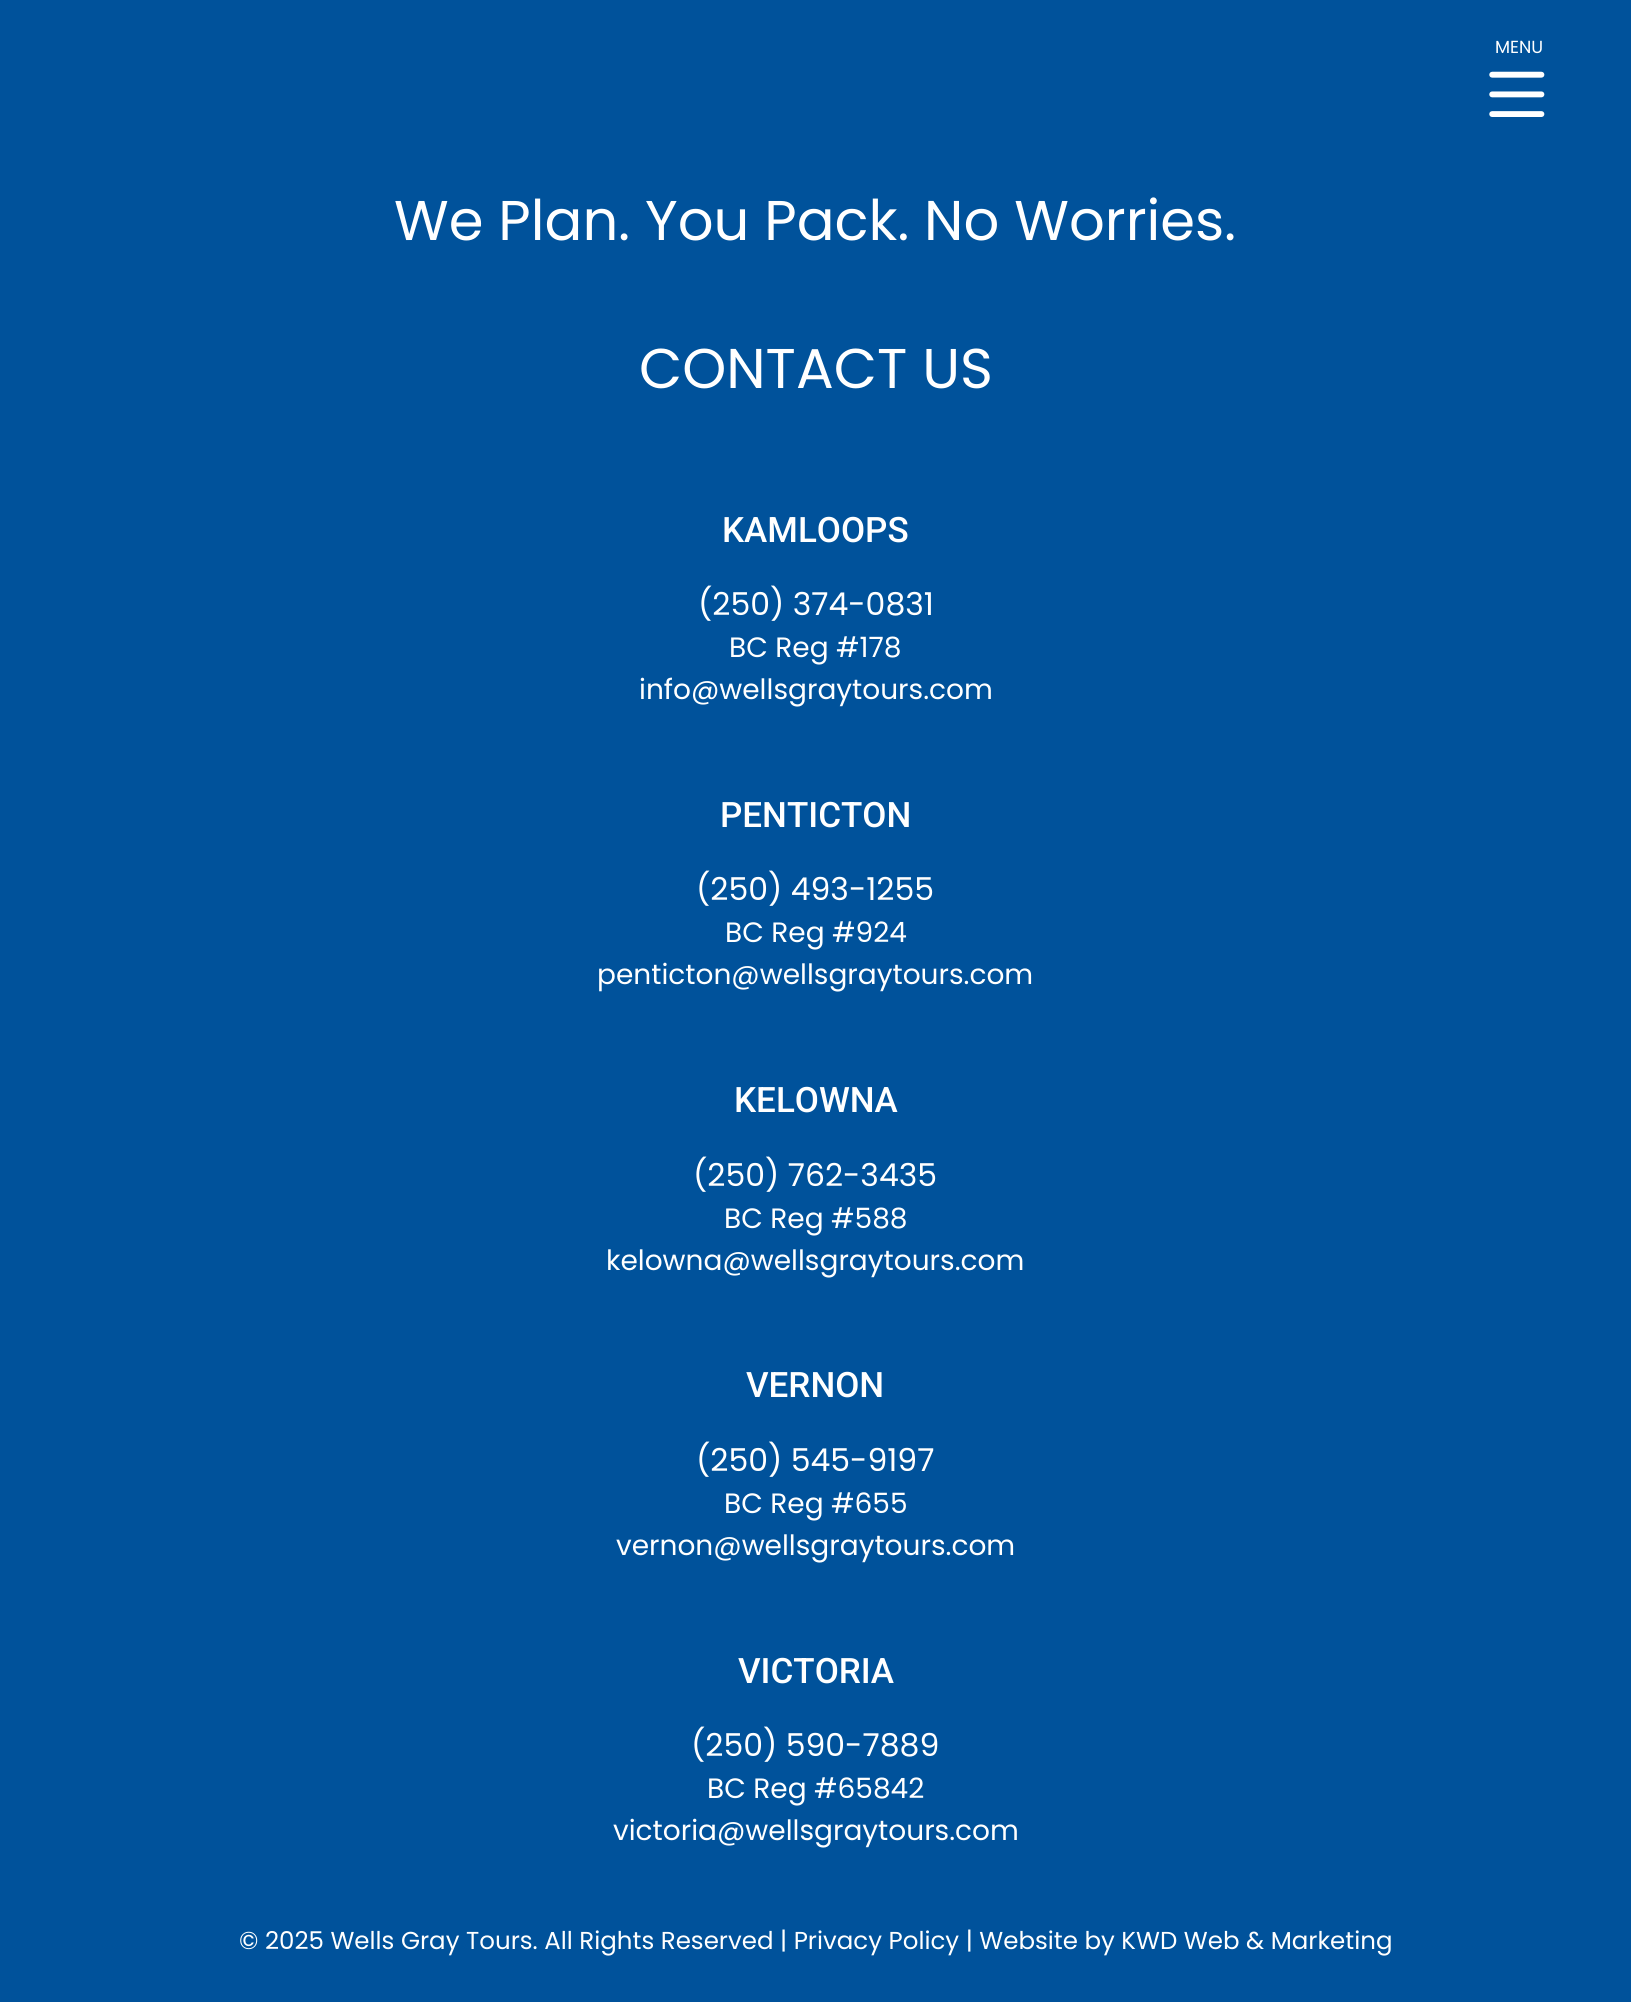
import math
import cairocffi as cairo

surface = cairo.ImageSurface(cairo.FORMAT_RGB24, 1631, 2002)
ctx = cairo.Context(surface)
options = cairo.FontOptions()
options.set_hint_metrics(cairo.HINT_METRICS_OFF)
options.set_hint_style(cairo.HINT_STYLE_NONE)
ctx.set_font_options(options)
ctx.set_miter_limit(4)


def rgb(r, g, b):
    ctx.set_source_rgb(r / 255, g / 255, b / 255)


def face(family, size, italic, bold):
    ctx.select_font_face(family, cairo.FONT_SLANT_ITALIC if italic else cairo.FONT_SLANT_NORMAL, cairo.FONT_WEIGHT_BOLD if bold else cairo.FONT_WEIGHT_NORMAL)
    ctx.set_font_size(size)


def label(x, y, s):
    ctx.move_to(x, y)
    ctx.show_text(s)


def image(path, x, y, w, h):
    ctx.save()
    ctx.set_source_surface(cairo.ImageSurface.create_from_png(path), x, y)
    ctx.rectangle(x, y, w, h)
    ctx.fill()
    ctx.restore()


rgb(0, 82, 155)
ctx.paint()
face('Poppins', 17.5, 0, 0)
rgb(255, 255, 255)
label(1495, 53, 'MENU')
image('image0.png', 1489, 71, 56, 46)
face('Poppins', 56, 0, 0)
label(394, 240, 'We Plan. You Pack. No Worries.')
label(639, 388, 'CONTACT US')
face('Roboto Medium', 35, 0, 0)
label(722, 542, 'KAMLOOPS')
face('Poppins', 31.5, 0, 0)
label(698, 615, '(250) 374-0831')
face('Poppins', 28, 0, 0)
label(729, 657, 'BC Reg #178')
label(639, 699, 'info@wellsgraytours.com')
face('Roboto Medium', 35, 0, 0)
label(720, 827, 'PENTICTON')
face('Poppins', 31.5, 0, 0)
label(696, 900, '(250) 493-1255')
face('Poppins', 28, 0, 0)
label(725, 942, 'BC Reg #924')
label(597, 984, 'penticton@wellsgraytours.com')
face('Roboto Medium', 35, 0, 0)
label(734, 1112, 'KELOWNA')
face('Poppins', 31.5, 0, 0)
label(693, 1186, '(250) 762-3435')
face('Poppins', 28, 0, 0)
label(724, 1228, 'BC Reg #588')
label(606, 1270, 'kelowna@wellsgraytours.com')
face('Roboto Medium', 35, 0, 0)
label(746, 1397, 'VERNON')
face('Poppins', 31.5, 0, 0)
label(696, 1471, '(250) 545-9197')
face('Poppins', 28, 0, 0)
label(724, 1513, 'BC Reg #655')
label(616, 1555, 'vernon@wellsgraytours.com')
face('Roboto Medium', 35, 0, 0)
label(738, 1683, 'VICTORIA')
face('Poppins', 31.5, 0, 0)
label(691, 1756, '(250) 590-7889')
face('Poppins', 28, 0, 0)
label(707, 1798, 'BC Reg #65842')
label(613, 1840, 'victoria@wellsgraytours.com')
face('Poppins', 24.5, 0, 0)
label(239, 1949, '© 2025 Wells Gray Tours. All Rights Reserved | Privacy Policy | Website by KWD Web & Marketing')
surface.write_to_png('render.png')
